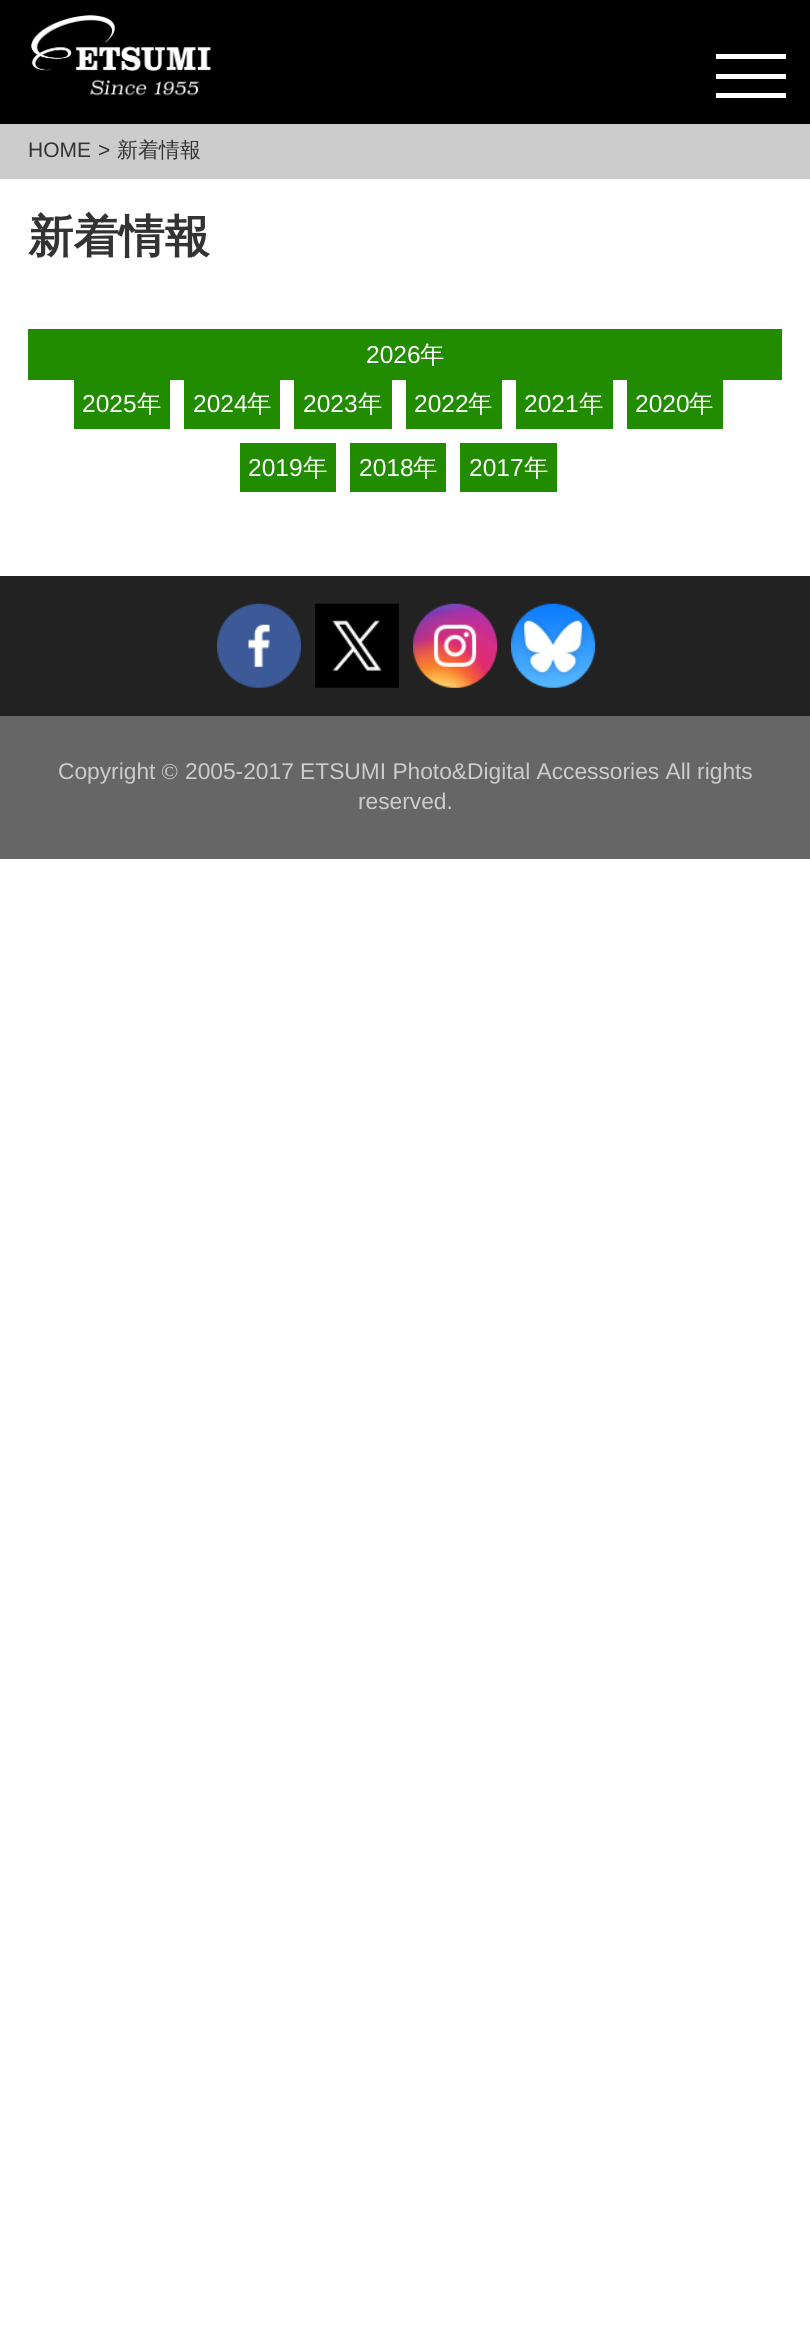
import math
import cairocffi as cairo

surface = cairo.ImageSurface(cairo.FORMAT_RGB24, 810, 2337)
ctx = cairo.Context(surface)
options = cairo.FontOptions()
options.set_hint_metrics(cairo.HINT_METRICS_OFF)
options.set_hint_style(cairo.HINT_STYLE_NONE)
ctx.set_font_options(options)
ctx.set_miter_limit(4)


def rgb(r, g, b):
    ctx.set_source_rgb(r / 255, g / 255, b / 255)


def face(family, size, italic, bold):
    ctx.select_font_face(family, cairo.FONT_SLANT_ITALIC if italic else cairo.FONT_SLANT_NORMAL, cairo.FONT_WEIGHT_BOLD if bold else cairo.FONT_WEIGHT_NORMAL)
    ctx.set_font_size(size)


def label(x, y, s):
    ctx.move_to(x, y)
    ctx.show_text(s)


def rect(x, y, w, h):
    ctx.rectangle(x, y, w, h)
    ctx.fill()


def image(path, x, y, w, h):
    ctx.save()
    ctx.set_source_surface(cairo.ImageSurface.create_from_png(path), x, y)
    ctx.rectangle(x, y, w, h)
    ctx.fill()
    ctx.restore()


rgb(255, 255, 255)
ctx.paint()
rgb(0, 0, 0)
rect(0, 0, 810, 124)
image('image0.png', 31, 15, 180, 81)
rgb(255, 255, 255)
rect(716, 54, 70, 5)
rect(716, 74, 70, 5)
rect(716, 93, 70, 5)
rgb(204, 204, 204)
rect(0, 124, 810, 55)
face('Liberation Sans', 21, 0, 0)
rgb(51, 51, 51)
label(28, 157, 'HOME')
label(98, 157, '>')
face('WenQuanYi Zen Hei Medium', 21, 0, 0)
label(117, 157, '新着情報')
face('WenQuanYi Zen Hei', 45.5, 0, 1)
label(28, 252, '新着情報')
rgb(34, 140, 0)
rect(28, 329, 754, 51)
face('Liberation Sans', 24.5, 0, 0)
rgb(255, 255, 255)
label(366, 363, '2026')
face('WenQuanYi Zen Hei Medium', 24.5, 0, 0)
label(420, 363, '年')
rgb(34, 140, 0)
rect(74, 380, 96, 49)
face('Liberation Sans', 24.5, 0, 0)
rgb(255, 255, 255)
label(82, 412, '2025')
face('WenQuanYi Zen Hei Medium', 24.5, 0, 0)
label(137, 412, '年')
rgb(34, 140, 0)
rect(184, 380, 96, 49)
face('Liberation Sans', 24.5, 0, 0)
rgb(255, 255, 255)
label(193, 412, '2024')
face('WenQuanYi Zen Hei Medium', 24.5, 0, 0)
label(247, 412, '年')
rgb(34, 140, 0)
rect(294, 380, 98, 49)
face('Liberation Sans', 24.5, 0, 0)
rgb(255, 255, 255)
label(303, 412, '2023')
face('WenQuanYi Zen Hei Medium', 24.5, 0, 0)
label(358, 412, '年')
rgb(34, 140, 0)
rect(406, 380, 96, 49)
face('Liberation Sans', 24.5, 0, 0)
rgb(255, 255, 255)
label(414, 412, '2022')
face('WenQuanYi Zen Hei Medium', 24.5, 0, 0)
label(468, 412, '年')
rgb(34, 140, 0)
rect(516, 380, 97, 49)
face('Liberation Sans', 24.5, 0, 0)
rgb(255, 255, 255)
label(524, 412, '2021')
face('WenQuanYi Zen Hei Medium', 24.5, 0, 0)
label(579, 412, '年')
rgb(34, 140, 0)
rect(627, 380, 96, 49)
face('Liberation Sans', 24.5, 0, 0)
rgb(255, 255, 255)
label(635, 412, '2020')
face('WenQuanYi Zen Hei Medium', 24.5, 0, 0)
label(689, 412, '年')
rgb(34, 140, 0)
rect(240, 443, 96, 49)
face('Liberation Sans', 24.5, 0, 0)
rgb(255, 255, 255)
label(248, 476, '2019')
face('WenQuanYi Zen Hei Medium', 24.5, 0, 0)
label(303, 476, '年')
rgb(34, 140, 0)
rect(350, 443, 96, 49)
face('Liberation Sans', 24.5, 0, 0)
rgb(255, 255, 255)
label(359, 476, '2018')
face('WenQuanYi Zen Hei Medium', 24.5, 0, 0)
label(413, 476, '年')
rgb(34, 140, 0)
rect(460, 443, 97, 49)
face('Liberation Sans', 24.5, 0, 0)
rgb(255, 255, 255)
label(469, 476, '2017')
face('WenQuanYi Zen Hei Medium', 24.5, 0, 0)
label(524, 476, '年')
rgb(34, 34, 34)
rect(0, 576, 810, 140)
image('image1.png', 217, 603, 84, 85)
image('image2.png', 315, 603, 84, 85)
image('image3.png', 413, 603, 84, 85)
image('image4.png', 511, 603, 84, 85)
rgb(102, 102, 102)
rect(0, 716, 810, 143)
face('Liberation Sans', 22.75, 0, 0)
rgb(204, 204, 204)
label(58, 779, 'Copyright')
face('Liberation Serif', 22.75, 0, 0)
label(161, 779, '©')
face('Liberation Sans', 22.75, 0, 0)
label(185, 779, '2005-2017 ETSUMI Photo&Digital Accessories All rights')
label(358, 809, 'reserved.')
surface.write_to_png('render.png')
